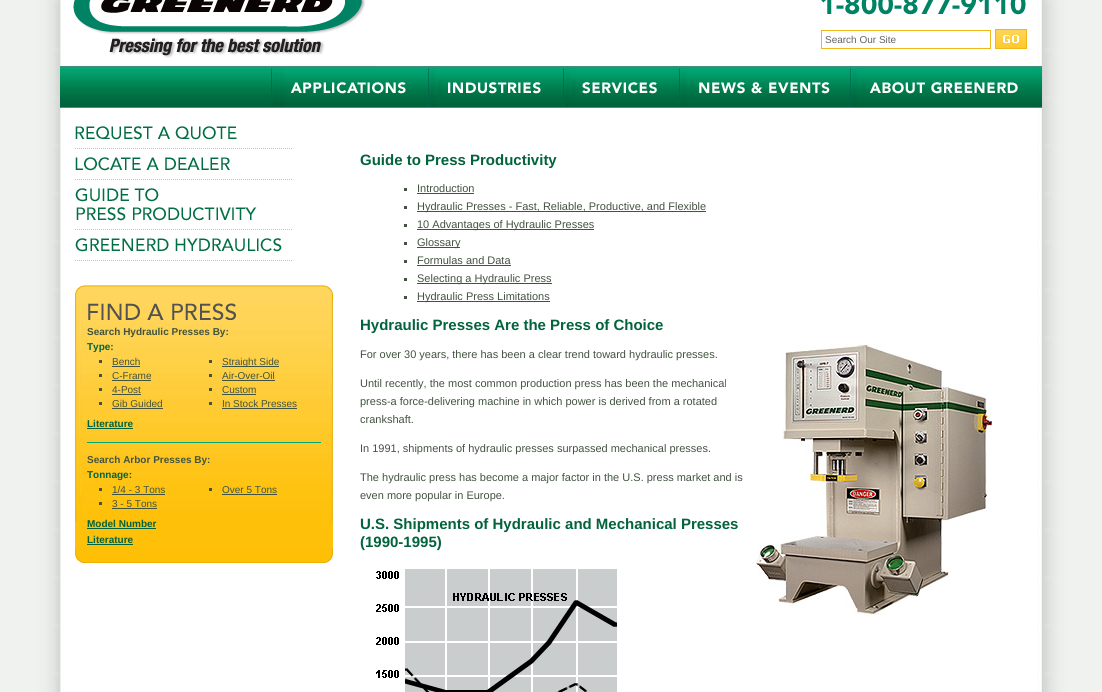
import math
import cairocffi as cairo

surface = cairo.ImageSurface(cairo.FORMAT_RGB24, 1102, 692)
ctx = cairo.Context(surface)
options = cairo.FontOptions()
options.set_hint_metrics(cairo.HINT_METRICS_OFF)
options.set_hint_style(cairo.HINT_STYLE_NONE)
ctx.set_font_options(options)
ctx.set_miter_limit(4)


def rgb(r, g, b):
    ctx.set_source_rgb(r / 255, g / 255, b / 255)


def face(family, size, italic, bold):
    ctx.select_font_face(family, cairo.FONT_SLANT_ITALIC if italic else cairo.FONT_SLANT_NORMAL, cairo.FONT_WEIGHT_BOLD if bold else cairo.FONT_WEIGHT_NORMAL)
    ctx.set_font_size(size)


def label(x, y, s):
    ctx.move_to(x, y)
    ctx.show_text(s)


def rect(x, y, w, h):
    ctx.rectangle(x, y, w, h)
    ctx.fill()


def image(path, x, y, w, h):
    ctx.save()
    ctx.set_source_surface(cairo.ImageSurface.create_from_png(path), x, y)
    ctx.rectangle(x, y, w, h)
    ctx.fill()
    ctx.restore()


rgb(255, 255, 255)
ctx.paint()
image('image0.png', 0, 0, 1102, 692)
image('image1.png', 65, 0, 311, 66)
image('image2.png', 821, 0, 205, 15)
ctx.rectangle(821.5, 30.5, 169, 18)
rgb(237, 184, 27)
ctx.set_line_width(1)
ctx.stroke()
face('Liberation Sans', 10, 0, 0)
rgb(100, 100, 100)
label(825, 43, 'Search Our Site')
image('image3.png', 995, 29, 32, 20)
image('image4.png', 60, 66, 982, 42)
image('image5.png', 271, 67, 157, 40)
image('image6.png', 428, 67, 135, 40)
image('image7.png', 563, 67, 116, 40)
image('image8.png', 679, 67, 171, 40)
image('image9.png', 850, 67, 192, 40)
image('image10.png', 75, 126, 162, 14)
image('image11.png', 75, 148, 217, 1)
image('image12.png', 75, 157, 155, 14)
image('image11.png', 75, 179, 217, 1)
image('image13.png', 75, 188, 182, 33)
image('image11.png', 75, 229, 217, 1)
image('image14.png', 75, 238, 207, 14)
image('image11.png', 75, 260, 217, 1)
rgb(254, 192, 8)
rect(75, 510, 258, 38)
image('image15.png', 75, 285, 258, 17)
image('image16.png', 75, 302, 12, 224)
image('image17.png', 87, 302, 234, 208)
image('image18.png', 88, 303, 148, 17)
face('Liberation Sans', 10, 0, 1)
rgb(66, 83, 64)
label(87, 335, 'Search Hydraulic Presses By:')
rgb(2, 99, 60)
label(87, 350, 'Type:')
rgb(66, 83, 64)
rect(99, 360, 3, 3)
face('Liberation Sans', 10, 0, 0)
label(112, 365, 'Bench')
rect(112, 366, 28, 1)
rect(99, 374, 3, 3)
label(112, 379, 'C-Frame')
rect(112, 380, 39, 1)
rect(99, 388, 3, 3)
label(112, 393, '4-Post')
rect(112, 394, 29, 1)
rect(99, 402, 3, 3)
label(112, 407, 'Gib Guided')
rect(112, 408, 51, 1)
rect(209, 360, 3, 3)
rect(222, 366, 57, 1)
label(222, 365, 'Straight Side')
rect(209, 374, 3, 3)
label(222, 379, 'Air-Over-Oil')
rect(222, 380, 53, 1)
rect(209, 388, 3, 3)
label(222, 393, 'Custom')
rect(222, 394, 34, 1)
rect(209, 402, 3, 3)
label(222, 407, 'In Stock Presses')
rect(222, 408, 75, 1)
face('Liberation Sans', 10, 0, 1)
rgb(2, 99, 60)
label(87, 427, 'Literature')
rect(87, 428, 46, 1)
rgb(0, 167, 116)
rect(87, 442, 234, 1)
rgb(66, 83, 64)
label(87, 463, 'Search Arbor Presses By:')
rgb(2, 99, 60)
label(87, 478, 'Tonnage:')
rgb(66, 83, 64)
rect(99, 488, 3, 3)
face('Liberation Sans', 10, 0, 0)
label(112, 493, '1/4 - 3 Tons')
rect(112, 494, 53, 1)
rect(99, 502, 3, 3)
label(112, 507, '3 - 5 Tons')
rect(112, 508, 45, 1)
rect(209, 488, 3, 3)
label(222, 493, 'Over 5 Tons')
rect(222, 494, 55, 1)
face('Liberation Sans', 10, 0, 1)
rgb(2, 99, 60)
label(87, 527, 'Model Number')
rect(87, 528, 69, 1)
label(87, 543, 'Literature')
rect(87, 544, 46, 1)
image('image19.png', 321, 302, 12, 224)
image('image20.png', 75, 548, 258, 15)
face('Liberation Sans', 15, 0, 1)
label(360, 165, 'Guide to Press Productivity')
rgb(66, 83, 64)
rect(404, 188, 3, 3)
face('Liberation Sans', 11, 0, 0)
label(417, 192, 'Introduction')
rect(417, 193, 57, 1)
rect(404, 206, 3, 3)
rect(417, 211, 289, 1)
label(417, 210, 'Hydraulic Presses - Fast, Reliable, Productive, and Flexible')
rect(404, 224, 3, 3)
rect(417, 229, 177, 1)
label(417, 228, '10 Advantages of Hydraulic Presses')
rect(404, 242, 3, 3)
rect(417, 247, 43, 1)
label(417, 246, 'Glossary')
rect(404, 260, 3, 3)
label(417, 264, 'Formulas and Data')
rect(417, 265, 94, 1)
rect(404, 278, 3, 3)
rect(417, 283, 135, 1)
label(417, 282, 'Selecting a Hydraulic Press')
rect(404, 296, 3, 3)
rect(417, 301, 133, 1)
label(417, 300, 'Hydraulic Press Limitations')
face('Liberation Sans', 15, 0, 1)
rgb(2, 99, 60)
label(360, 330, 'Hydraulic Presses Are the Press of Choice')
face('Liberation Sans', 11, 0, 0)
rgb(66, 83, 64)
label(360, 358, 'For over 30 years, there has been a clear trend toward hydraulic presses.')
image('image21.png', 752, 344, 240, 271)
label(360, 387, 'Until recently, the most common production press has been the mechanical')
label(360, 405, 'press-a force-delivering machine in which power is derived from a rotated')
label(360, 423, 'crankshaft.')
label(360, 452, 'In 1991, shipments of hydraulic presses surpassed mechanical presses.')
label(360, 481, 'The hydraulic press has become a major factor in the U.S. press market and is')
label(360, 499, 'even more popular in Europe.')
face('Liberation Sans', 15, 0, 1)
rgb(2, 99, 60)
label(360, 529, 'U.S. Shipments of Hydraulic and Mechanical Presses')
label(360, 547, '(1990-1995)')
image('image22.png', 376, 569, 241, 123)
surface.write_to_png('render.png')
